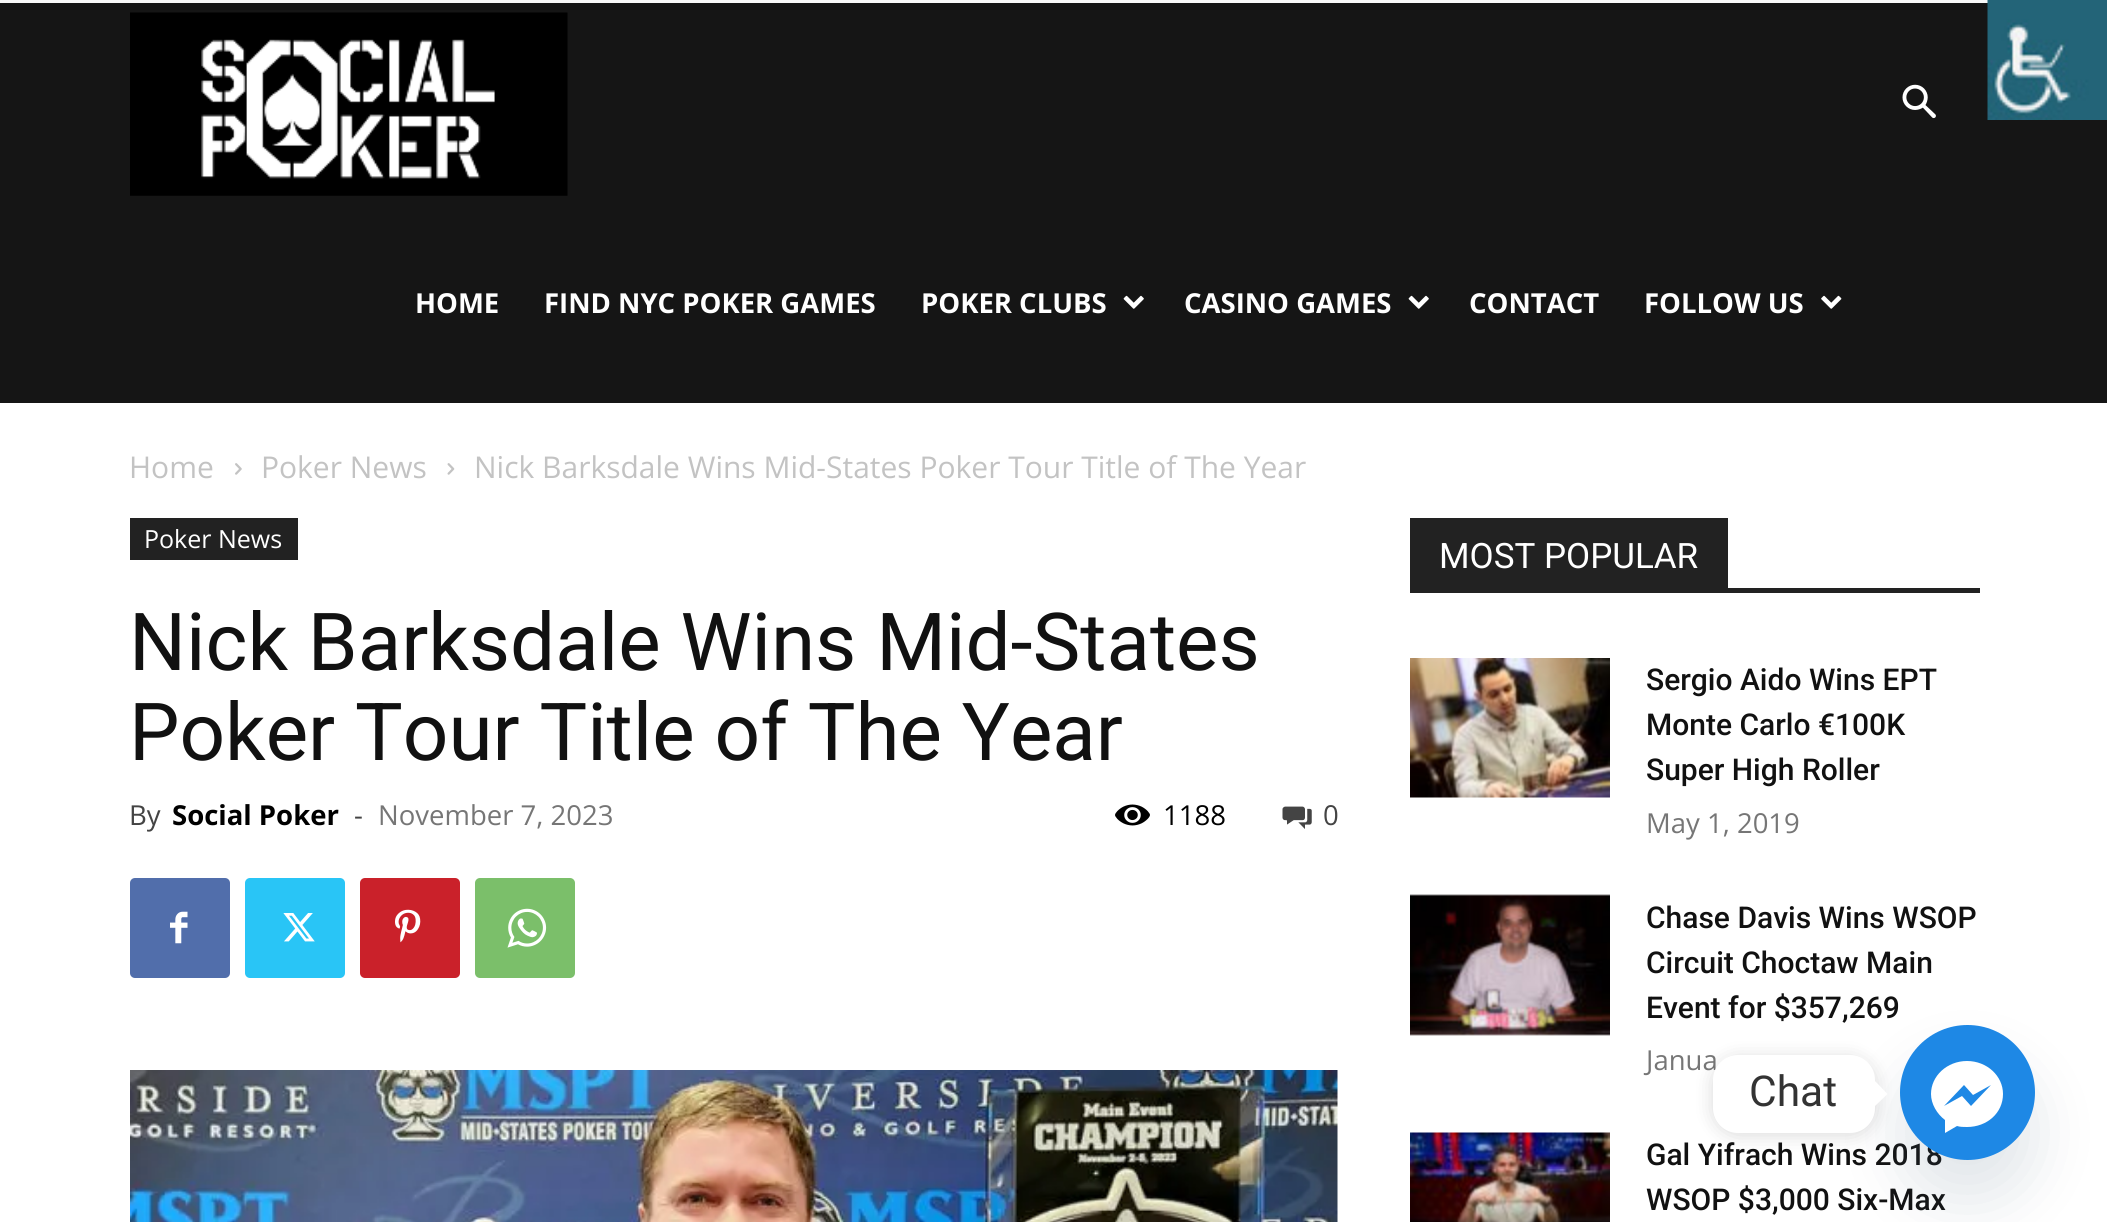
import math
import cairocffi as cairo

surface = cairo.ImageSurface(cairo.FORMAT_RGB24, 2107, 1222)
ctx = cairo.Context(surface)
options = cairo.FontOptions()
options.set_hint_metrics(cairo.HINT_METRICS_OFF)
options.set_hint_style(cairo.HINT_STYLE_NONE)
ctx.set_font_options(options)
ctx.set_miter_limit(4)


def rgb(r, g, b):
    ctx.set_source_rgb(r / 255, g / 255, b / 255)


def face(family, size, italic, bold):
    ctx.select_font_face(family, cairo.FONT_SLANT_ITALIC if italic else cairo.FONT_SLANT_NORMAL, cairo.FONT_WEIGHT_BOLD if bold else cairo.FONT_WEIGHT_NORMAL)
    ctx.set_font_size(size)


def label(x, y, s):
    ctx.move_to(x, y)
    ctx.show_text(s)


def rect(x, y, w, h):
    ctx.rectangle(x, y, w, h)
    ctx.fill()


def rrect(x, y, w, h, r):
    ctx.new_sub_path()
    for i, (u, v) in enumerate([(x + w - r, y + h - r), (x + r, y + h - r), (x + r, y + r), (x + w - r, y + r)]):
        ctx.arc(u, v, r, i * math.pi / 2, (i + 1) * math.pi / 2)
    ctx.close_path()


def soft_shadow(x, y, w, h, r, blur, alpha):
    ctx.push_group_with_content(cairo.CONTENT_ALPHA)
    ctx.set_operator(cairo.OPERATOR_SOURCE)
    for i in range(15, -16, -2):
        e = blur * i / 6
        if min(w, h) + 2 * e > 0:
            ctx.set_source_rgba(0, 0, 0, alpha * math.erfc((i - 1) / 8.5) / 2)
            rrect(x - e, y - e, w + 2 * e, h + 2 * e, max(0, min(r + e + blur * .6, min(w, h) / 2 + e)))
            ctx.fill()
    ctx.mask(ctx.pop_group())


def image(path, x, y, w, h):
    ctx.save()
    ctx.set_source_surface(cairo.ImageSurface.create_from_png(path), x, y)
    ctx.rectangle(x, y, w, h)
    ctx.fill()
    ctx.restore()


rgb(255, 255, 255)
ctx.paint()
rgb(249, 249, 249)
rect(0, 0, 1988, 3)
rgb(21, 21, 21)
rect(0, 3, 2107, 400)
image('image0.png', 1987, 0, 120, 120)
image('image1.png', 1902, 84, 34, 35)
image('image2.png', 130, 12, 438, 184)
face('Open Sans', 27.5, 0, 1)
rgb(255, 255, 255)
label(415, 313, 'HOME')
label(544, 313, 'FIND NYC POKER GAMES')
label(921, 313, 'POKER CLUBS')
image('image3.png', 1123, 295, 21, 14)
label(1184, 313, 'CASINO GAMES')
image('image3.png', 1408, 295, 21, 14)
label(1469, 313, 'CONTACT')
label(1644, 313, 'FOLLOW US')
image('image4.png', 1821, 295, 21, 14)
face('Open Sans', 30, 0, 0)
rgb(195, 195, 195)
label(129, 478, 'Home')
image('image5.png', 235, 463, 7, 12)
label(261, 478, 'Poker News')
image('image6.png', 447, 463, 8, 12)
label(474, 478, 'Nick Barksdale Wins Mid-States Poker Tour Title of The Year')
rgb(34, 34, 34)
rect(130, 518, 168, 42)
face('Open Sans', 25, 0, 0)
rgb(255, 255, 255)
label(144, 548, 'Poker News')
face('Roboto', 80, 0, 0)
rgb(17, 17, 17)
label(129, 670, 'Nick Barksdale Wins Mid-States')
label(129, 760, 'Poker Tour Title of The Year')
face('Open Sans', 27.5, 0, 0)
rgb(68, 68, 68)
label(129, 825, 'By')
face('Open Sans', 27.5, 0, 1)
rgb(0, 0, 0)
label(172, 825, 'Social Poker')
face('Open Sans', 27.5, 0, 0)
rgb(68, 68, 68)
label(354, 825, '-')
rgb(118, 118, 118)
label(378, 825, 'November 7, 2023')
image('image7.png', 1115, 804, 35, 22)
rgb(0, 0, 0)
label(1163, 825, '1188')
image('image8.png', 1282, 806, 30, 23)
rgb(68, 68, 68)
label(1323, 825, '0')
rgb(81, 110, 171)
rrect(130, 878, 100, 100, 5)
ctx.fill()
image('image9.png', 170, 911, 18, 33)
rgb(41, 197, 246)
rrect(245, 878, 100, 100, 5)
ctx.fill()
image('image10.png', 283, 913, 32, 29)
rgb(202, 33, 42)
rrect(360, 878, 100, 100, 5)
ctx.fill()
image('image11.png', 395, 909, 26, 34)
rgb(123, 191, 106)
rrect(475, 878, 100, 100, 5)
ctx.fill()
image('image12.png', 507, 908, 40, 40)
image('image13.png', 130, 1070, 1208, 152)
rgb(34, 34, 34)
rect(1410, 588, 570, 5)
rect(1410, 518, 318, 70)
face('Roboto', 35, 0, 0)
rgb(255, 255, 255)
label(1439, 568, 'MOST POPULAR')
image('image14.png', 1410, 658, 200, 140)
face('Roboto Medium', 30, 0, 0)
rgb(17, 17, 17)
label(1646, 690, 'Sergio Aido Wins EPT')
label(1646, 735, 'Monte Carlo €100K')
label(1646, 780, 'Super High Roller')
face('Open Sans', 27.5, 0, 0)
rgb(118, 118, 118)
label(1646, 833, 'May 1, 2019')
image('image15.png', 1410, 894, 200, 142)
face('Roboto Medium', 30, 0, 0)
rgb(17, 17, 17)
label(1646, 928, 'Chase Davis Wins WSOP')
label(1646, 973, 'Circuit Choctaw Main')
label(1646, 1018, 'Event for $357,269')
face('Open Sans', 27.5, 0, 0)
rgb(118, 118, 118)
label(1646, 1070, 'Janua')
image('image16.png', 1410, 1132, 200, 90)
face('Roboto Medium', 30, 0, 0)
rgb(17, 17, 17)
label(1646, 1165, 'Gal Yifrach Wins 2018')
label(1646, 1210, 'WSOP $3,000 Six-Max')
rgb(73, 104, 126)
soft_shadow(1900, 1065, 135, 135, 67.5, 30, 0.16)
rgb(30, 136, 229)
ctx.arc(1967.5, 1092.5, 67.5, 0, 2 * math.pi)
ctx.fill()
rgb(0, 0, 0)
soft_shadow(1713, 1058, 162, 77, 25, 9.5, 0.15)
rgb(255, 255, 255)
rrect(1713, 1055, 162, 78, 25)
ctx.fill()
face('Roboto', 42.5, 0, 0)
rgb(51, 51, 51)
label(1749, 1106, 'Chat')
rgb(255, 255, 255)
ctx.new_path()
ctx.move_to(1875, 1106)
ctx.line_to(1875, 1081)
ctx.line_to(1887.5, 1094)
ctx.close_path()
ctx.fill()
ctx.set_fill_rule(cairo.FILL_RULE_EVEN_ODD)
ctx.new_path()
ctx.move_to(1931, 1094)
ctx.curve_to(1931, 1076, 1947, 1061, 1967, 1061)
ctx.curve_to(1987, 1061, 2003, 1076, 2003, 1094)
ctx.curve_to(2003, 1113, 1987, 1127, 1967, 1127)
ctx.curve_to(1964, 1127, 1960, 1127, 1957, 1126)
ctx.line_to(1945, 1133)
ctx.line_to(1945, 1120)
ctx.curve_to(1937, 1114, 1931, 1104, 1931, 1094)
ctx.close_path()
ctx.move_to(1962, 1096)
ctx.line_to(1971, 1106)
ctx.line_to(1991, 1085)
ctx.line_to(1973, 1095)
ctx.line_to(1964, 1085)
ctx.line_to(1944, 1106)
ctx.close_path()
ctx.fill()
surface.write_to_png('render.png')
